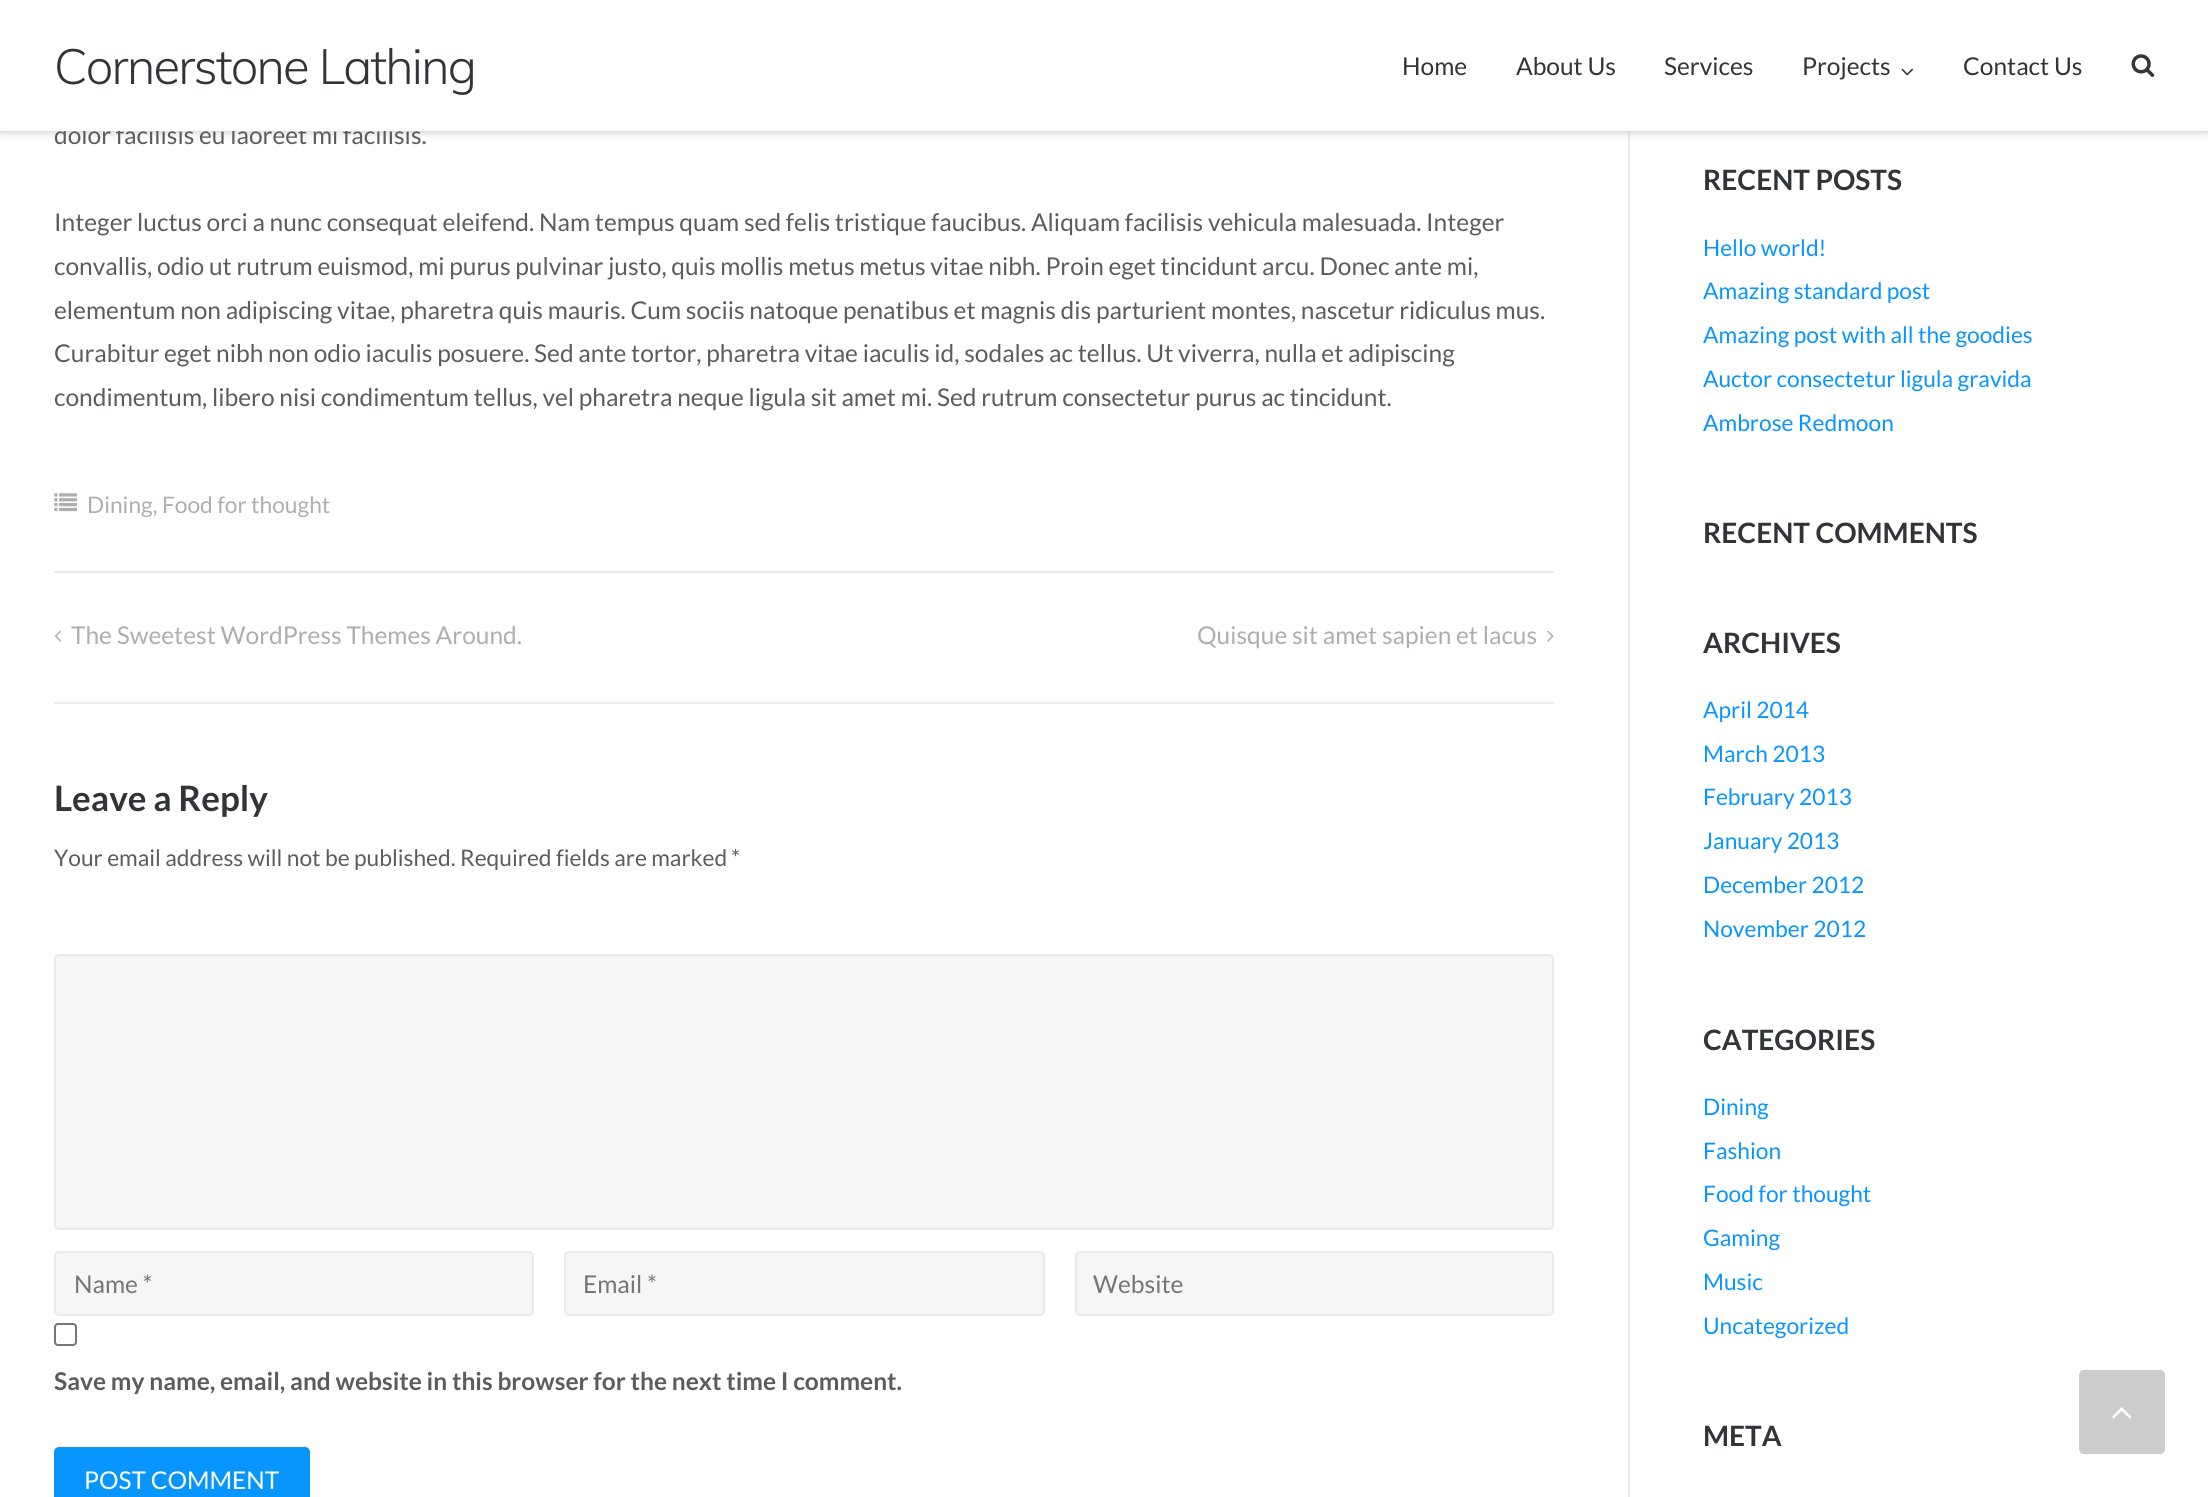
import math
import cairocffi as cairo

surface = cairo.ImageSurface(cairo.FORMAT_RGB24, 2208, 1497)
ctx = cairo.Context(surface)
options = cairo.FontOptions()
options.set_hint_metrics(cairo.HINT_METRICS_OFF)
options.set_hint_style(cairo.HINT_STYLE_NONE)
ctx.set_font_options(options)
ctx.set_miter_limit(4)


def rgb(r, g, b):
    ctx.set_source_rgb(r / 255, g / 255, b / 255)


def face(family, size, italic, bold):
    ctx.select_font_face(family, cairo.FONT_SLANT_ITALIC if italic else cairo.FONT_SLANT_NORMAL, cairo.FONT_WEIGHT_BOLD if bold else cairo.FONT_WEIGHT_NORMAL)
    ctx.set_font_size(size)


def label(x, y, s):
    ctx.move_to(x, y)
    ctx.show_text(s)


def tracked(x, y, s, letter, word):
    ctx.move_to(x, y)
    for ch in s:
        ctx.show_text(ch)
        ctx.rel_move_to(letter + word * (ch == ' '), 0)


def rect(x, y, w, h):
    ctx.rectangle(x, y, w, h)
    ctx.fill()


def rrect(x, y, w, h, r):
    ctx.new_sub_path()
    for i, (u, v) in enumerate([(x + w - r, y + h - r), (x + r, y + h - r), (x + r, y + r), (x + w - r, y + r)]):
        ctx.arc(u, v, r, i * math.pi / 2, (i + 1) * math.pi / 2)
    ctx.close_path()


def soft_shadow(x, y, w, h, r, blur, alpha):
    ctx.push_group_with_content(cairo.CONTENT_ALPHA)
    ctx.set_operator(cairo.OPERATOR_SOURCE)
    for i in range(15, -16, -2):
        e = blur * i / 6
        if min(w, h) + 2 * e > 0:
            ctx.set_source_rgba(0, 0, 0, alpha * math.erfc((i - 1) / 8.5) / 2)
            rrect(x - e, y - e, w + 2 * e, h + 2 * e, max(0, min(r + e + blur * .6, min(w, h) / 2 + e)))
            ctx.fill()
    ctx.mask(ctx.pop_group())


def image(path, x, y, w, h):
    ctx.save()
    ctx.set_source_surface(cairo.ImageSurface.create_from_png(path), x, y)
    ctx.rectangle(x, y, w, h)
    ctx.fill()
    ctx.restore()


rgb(255, 255, 255)
ctx.paint()
rgb(234, 234, 235)
rect(1628, 131, 2, 1366)
rgb(0, 0, 0)
soft_shadow(0, 0, 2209, 131, 0, 5, 0.25)
face('Lato', 24.5, 0, 0)
rgb(90, 93, 96)
label(54, 144, 'dolor facilisis eu laoreet mi facilisis.')
rgb(255, 255, 255)
rect(0, 0, 2208, 131)
face('Muli Light', 49, 0, 0)
rgb(49, 53, 57)
tracked(54, 84, 'Cornerstone Lathing', -1.75, 0)
face('Lato', 24.5, 0, 0)
label(1402, 75, 'Home')
label(1516, 75, 'About Us')
label(1664, 75, 'Services')
label(1802, 75, 'Projects')
image('image0.png', 1901, 68, 13, 8)
label(1963, 75, 'Contact Us')
image('image1.png', 2131, 54, 24, 23)
rgb(90, 93, 96)
label(54, 231, 'Integer luctus orci a nunc consequat eleifend. Nam tempus quam sed felis tristique faucibus. Aliquam facilisis vehicula malesuada. Integer')
label(54, 275, 'convallis, odio ut rutrum euismod, mi purus pulvinar justo, quis mollis metus metus vitae nibh. Proin eget tincidunt arcu. Donec ante mi,')
label(54, 319, 'elementum non adipiscing vitae, pharetra quis mauris. Cum sociis natoque penatibus et magnis dis parturient montes, nascetur ridiculus mus.')
label(54, 362, 'Curabitur eget nibh non odio iaculis posuere. Sed ante tortor, pharetra vitae iaculis id, sodales ac tellus. Ut viverra, nulla et adipiscing')
label(54, 406, 'condimentum, libero nisi condimentum tellus, vel pharetra neque ligula sit amet mi. Sed rutrum consectetur purus ac tincidunt.')
image('image2.png', 54, 493, 23, 19)
face('Lato', 22.75, 0, 0)
rgb(172, 174, 175)
label(87, 513, 'Dining, Food for thought')
rgb(234, 234, 235)
rect(54, 571, 1500, 2)
image('image3.png', 54, 630, 8, 12)
face('Lato', 24.5, 0, 0)
rgb(172, 174, 175)
label(71, 644, 'The Sweetest WordPress Themes Around.')
label(1197, 644, 'Quisque sit amet sapien et lacus')
image('image4.png', 1547, 630, 7, 12)
rgb(234, 234, 235)
rect(54, 702, 1500, 2)
face('Lato', 35, 0, 1)
rgb(49, 53, 57)
label(54, 811, 'Leave a Reply')
face('Lato', 22.75, 0, 0)
rgb(90, 93, 96)
label(54, 866, 'Your email address will not be published.')
label(460, 866, 'Required fields are marked')
label(731, 866, '*')
rgb(246, 246, 247)
rrect(55, 955, 1498, 274, 4)
ctx.fill_preserve()
rgb(234, 234, 235)
ctx.stroke()
rgb(246, 246, 247)
rrect(55, 1252, 478, 63, 4)
ctx.fill_preserve()
rgb(234, 234, 235)
ctx.stroke()
face('Lato', 24.5, 0, 0)
rgb(117, 117, 117)
label(74, 1293, 'Name *')
rgb(246, 246, 247)
rrect(565, 1252, 479, 63, 4)
ctx.fill_preserve()
rgb(234, 234, 235)
ctx.stroke()
rgb(117, 117, 117)
label(583, 1293, 'Email *')
rgb(246, 246, 247)
rrect(1076, 1252, 477, 63, 4)
ctx.fill_preserve()
rgb(234, 234, 235)
ctx.stroke()
rgb(117, 117, 117)
label(1093, 1293, 'Website')
rrect(55, 1324, 21, 21, 3)
rgb(118, 118, 118)
ctx.stroke()
face('Lato', 24.5, 0, 1)
rgb(90, 93, 96)
label(54, 1390, 'Save my name, email, and website in this browser for the next time I comment.')
rgb(8, 150, 254)
rrect(54, 1447, 256, 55, 5)
ctx.fill()
face('Lato', 24.5, 0, 0)
rgb(255, 255, 255)
label(84, 1489, 'POST COMMENT')
face('Lato', 28, 0, 1)
rgb(49, 53, 57)
label(1703, 190, 'RECENT POSTS')
face('Lato', 22.75, 0, 0)
rgb(8, 150, 254)
label(1703, 256, 'Hello world!')
label(1703, 299, 'Amazing standard post')
label(1703, 343, 'Amazing post with all the goodies')
label(1703, 387, 'Auctor consectetur ligula gravida')
label(1703, 431, 'Ambrose Redmoon')
face('Lato', 28, 0, 1)
rgb(49, 53, 57)
label(1703, 543, 'RECENT COMMENTS')
label(1703, 653, 'ARCHIVES')
face('Lato', 22.75, 0, 0)
rgb(8, 150, 254)
label(1703, 718, 'April 2014')
label(1703, 762, 'March 2013')
label(1703, 805, 'February 2013')
label(1703, 849, 'January 2013')
label(1703, 893, 'December 2012')
label(1703, 937, 'November 2012')
face('Lato', 28, 0, 1)
rgb(49, 53, 57)
label(1703, 1050, 'CATEGORIES')
face('Lato', 22.75, 0, 0)
rgb(8, 150, 254)
label(1703, 1115, 'Dining')
label(1703, 1159, 'Fashion')
label(1703, 1202, 'Food for thought')
label(1703, 1246, 'Gaming')
label(1703, 1290, 'Music')
label(1703, 1334, 'Uncategorized')
face('Lato', 28, 0, 1)
rgb(49, 53, 57)
label(1703, 1446, 'META')
rgb(204, 204, 204)
rrect(2079, 1370, 86, 84, 5)
ctx.fill()
image('image5.png', 2112, 1407, 20, 12)
surface.write_to_png('render.png')
